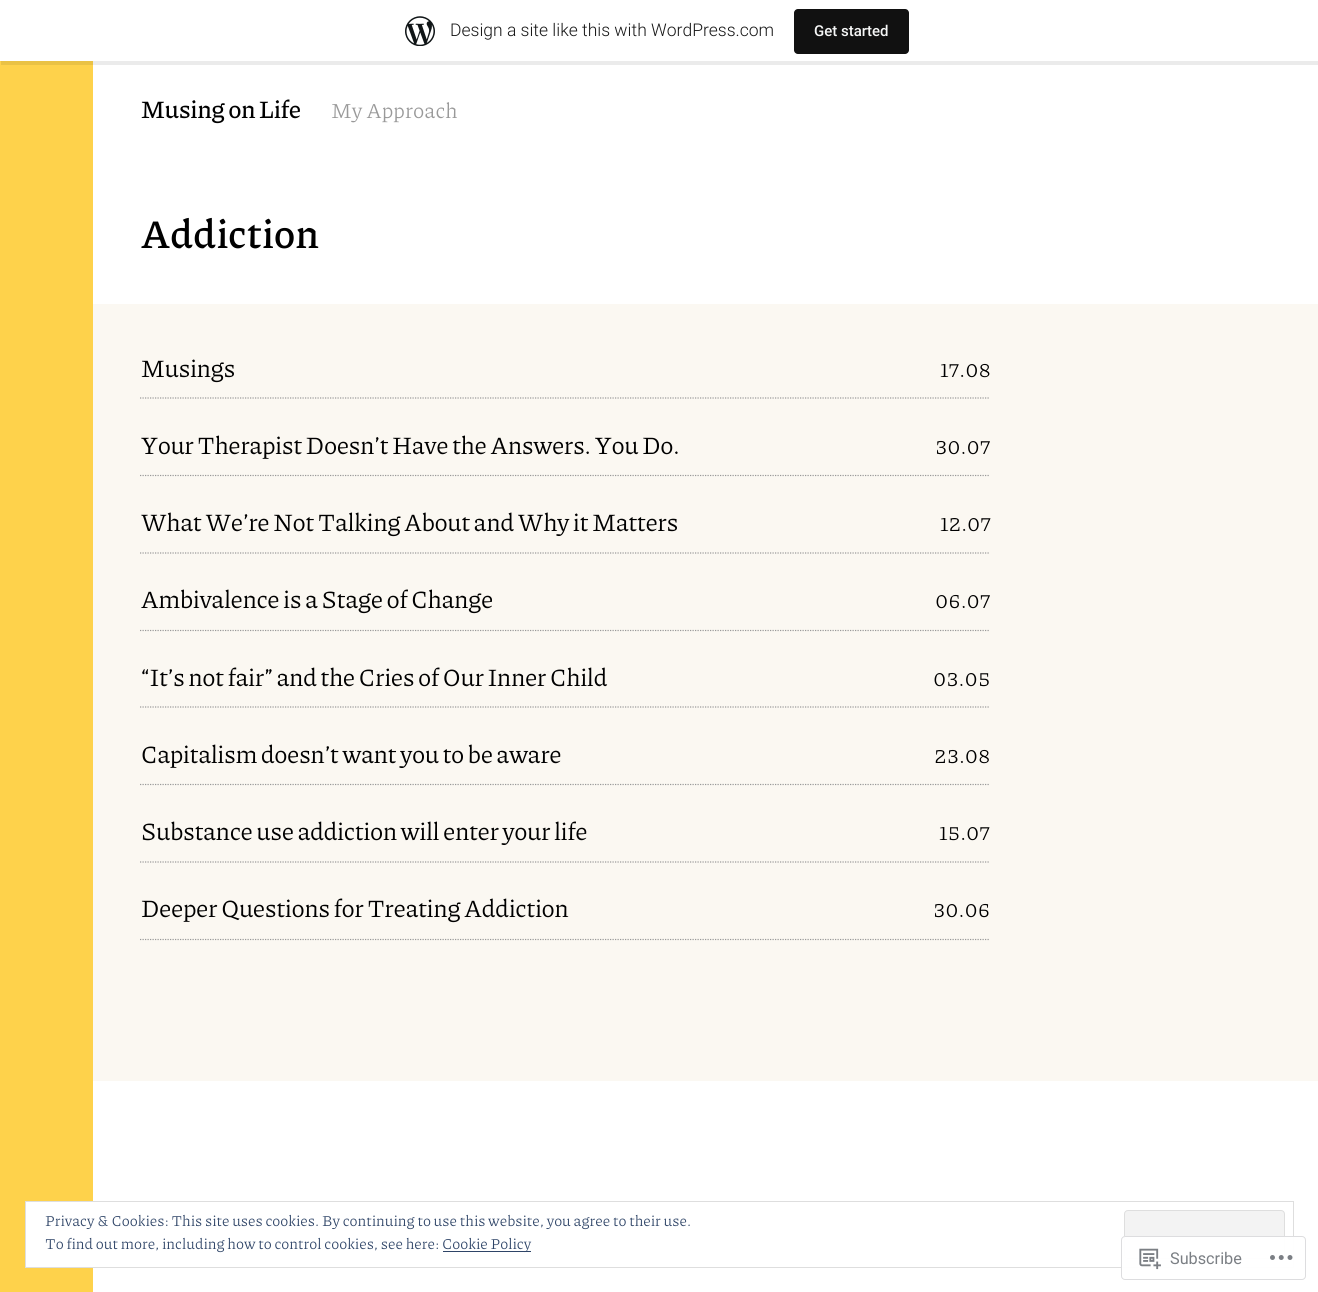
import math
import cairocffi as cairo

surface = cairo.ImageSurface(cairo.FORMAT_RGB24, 1318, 1292)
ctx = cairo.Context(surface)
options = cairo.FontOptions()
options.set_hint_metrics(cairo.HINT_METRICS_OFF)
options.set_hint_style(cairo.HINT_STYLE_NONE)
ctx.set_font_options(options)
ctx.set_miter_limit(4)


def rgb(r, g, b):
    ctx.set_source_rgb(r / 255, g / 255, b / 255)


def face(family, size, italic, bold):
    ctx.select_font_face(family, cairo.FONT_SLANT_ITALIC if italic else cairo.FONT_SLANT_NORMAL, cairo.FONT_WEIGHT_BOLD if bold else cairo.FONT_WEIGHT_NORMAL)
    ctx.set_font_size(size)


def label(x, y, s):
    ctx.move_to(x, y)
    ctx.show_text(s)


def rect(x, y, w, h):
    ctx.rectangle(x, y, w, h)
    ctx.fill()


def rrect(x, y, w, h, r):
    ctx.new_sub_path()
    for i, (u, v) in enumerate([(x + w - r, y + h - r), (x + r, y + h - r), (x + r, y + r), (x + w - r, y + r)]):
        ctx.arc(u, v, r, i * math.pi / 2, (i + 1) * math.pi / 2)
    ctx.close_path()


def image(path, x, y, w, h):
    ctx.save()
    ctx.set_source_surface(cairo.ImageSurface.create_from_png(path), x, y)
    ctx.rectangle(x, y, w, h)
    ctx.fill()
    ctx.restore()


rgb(255, 255, 255)
ctx.paint()
rgb(254, 210, 75)
rect(0, 61, 93, 1231)
ctx.set_source_rgba(0, 0, 0, 0.08)
ctx.new_path()
ctx.move_to(1, 61)
ctx.line_to(1, 65)
ctx.line_to(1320, 65)
ctx.line_to(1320, 4)
ctx.line_to(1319, 4)
ctx.line_to(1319, 61)
ctx.close_path()
ctx.fill()
image('image0.png', 405, 16, 30, 30)
face('Roboto Light', 17.5, 0, 0)
rgb(23, 23, 23)
label(450, 36, 'Design a site like this with WordPress.com')
rgb(17, 17, 17)
rrect(794, 9, 115, 45, 4)
ctx.fill()
face('Roboto Medium', 15, 0, 0)
rgb(246, 247, 247)
label(814, 36, 'Get started')
face('Piazzolla Medium', 25, 0, 0)
rgb(0, 0, 0)
label(141, 118, 'Musing on Life')
face('Piazzolla Light', 21.25, 0, 0)
rgb(153, 153, 153)
label(331, 118, 'My Approach')
face('Piazzolla SemiBold', 40, 0, 0)
rgb(0, 0, 0)
label(141, 248, 'Addiction')
rgb(251, 248, 242)
rect(93, 304, 1225, 777)
ctx.new_path()
ctx.move_to(140, 398)
ctx.line_to(990, 398)
rgb(153, 153, 153)
ctx.set_line_width(1.2)
ctx.set_dash([1.25, 1.25])
ctx.stroke()
face('Piazzolla', 25, 0, 0)
rgb(0, 0, 0)
label(141, 377, 'Musings')
face('Piazzolla Light', 21.25, 0, 0)
label(940, 377, '17.08')
ctx.new_path()
ctx.move_to(140, 475.5)
ctx.line_to(990, 475.5)
rgb(153, 153, 153)
ctx.stroke()
face('Piazzolla', 25, 0, 0)
rgb(0, 0, 0)
label(141, 454, 'Your Therapist Doesn’t Have the Answers. You Do.')
face('Piazzolla Light', 21.25, 0, 0)
label(935, 454, '30.07')
ctx.new_path()
ctx.move_to(140, 553)
ctx.line_to(990, 553)
rgb(153, 153, 153)
ctx.stroke()
face('Piazzolla', 25, 0, 0)
rgb(0, 0, 0)
label(141, 531, 'What We’re Not Talking About and Why it Matters')
face('Piazzolla Light', 21.25, 0, 0)
label(940, 531, '12.07')
ctx.new_path()
ctx.move_to(140, 630.5)
ctx.line_to(990, 630.5)
rgb(153, 153, 153)
ctx.stroke()
face('Piazzolla', 25, 0, 0)
rgb(0, 0, 0)
label(141, 608, 'Ambivalence is a Stage of Change')
face('Piazzolla Light', 21.25, 0, 0)
label(935, 608, '06.07')
ctx.new_path()
ctx.move_to(140, 707)
ctx.line_to(990, 707)
rgb(153, 153, 153)
ctx.stroke()
face('Piazzolla', 25, 0, 0)
rgb(0, 0, 0)
label(141, 686, '“It’s not fair” and the Cries of Our Inner Child')
face('Piazzolla Light', 21.25, 0, 0)
label(933, 686, '03.05')
ctx.new_path()
ctx.move_to(140, 784.5)
ctx.line_to(990, 784.5)
rgb(153, 153, 153)
ctx.stroke()
face('Piazzolla', 25, 0, 0)
rgb(0, 0, 0)
label(141, 763, 'Capitalism doesn’t want you to be aware')
face('Piazzolla Light', 21.25, 0, 0)
label(934, 763, '23.08')
ctx.new_path()
ctx.move_to(140, 862)
ctx.line_to(990, 862)
rgb(153, 153, 153)
ctx.stroke()
face('Piazzolla', 25, 0, 0)
rgb(0, 0, 0)
label(141, 840, 'Substance use addiction will enter your life')
face('Piazzolla Light', 21.25, 0, 0)
label(939, 840, '15.07')
ctx.new_path()
ctx.move_to(140, 939.5)
ctx.line_to(990, 939.5)
rgb(153, 153, 153)
ctx.stroke()
face('Piazzolla', 25, 0, 0)
rgb(0, 0, 0)
label(141, 917, 'Deeper Questions for Treating Addiction')
face('Piazzolla Light', 21.25, 0, 0)
label(933, 917, '30.06')
rgb(255, 255, 255)
rect(26, 1202, 67, 65)
ctx.rectangle(25.5, 1201.5, 1268, 66)
rgb(222, 222, 222)
ctx.set_line_width(1)
ctx.set_dash([])
ctx.stroke()
face('Piazzolla Light', 15, 0, 0)
rgb(46, 68, 103)
label(45, 1226, 'Privacy & Cookies: This site uses cookies. By continuing to use this website, you agree to their use.')
rgb(243, 243, 243)
rrect(1124.5, 1210.5, 160, 48, 3.5)
ctx.fill_preserve()
rgb(222, 222, 222)
ctx.stroke()
rgb(46, 68, 103)
label(45, 1249, 'To find out more, including how to control cookies, see here:')
rect(443, 1251, 88, 1)
label(442, 1249, 'Cookie Policy')
ctx.set_source_rgba(1, 1, 1, 0.98)
rrect(1121, 1236, 185, 44, 4)
ctx.fill()
rrect(1121.5, 1236.5, 184, 43, 3.5)
ctx.set_source_rgba(0.863, 0.863, 0.871, 0.98)
ctx.stroke()
image('image1.png', 1139, 1248, 22, 22)
face('Roboto', 16.25, 0, 0)
rgb(123, 127, 132)
label(1170, 1264, 'Subscribe')
image('image2.png', 1270, 1255, 23, 5)
surface.write_to_png('render.png')
